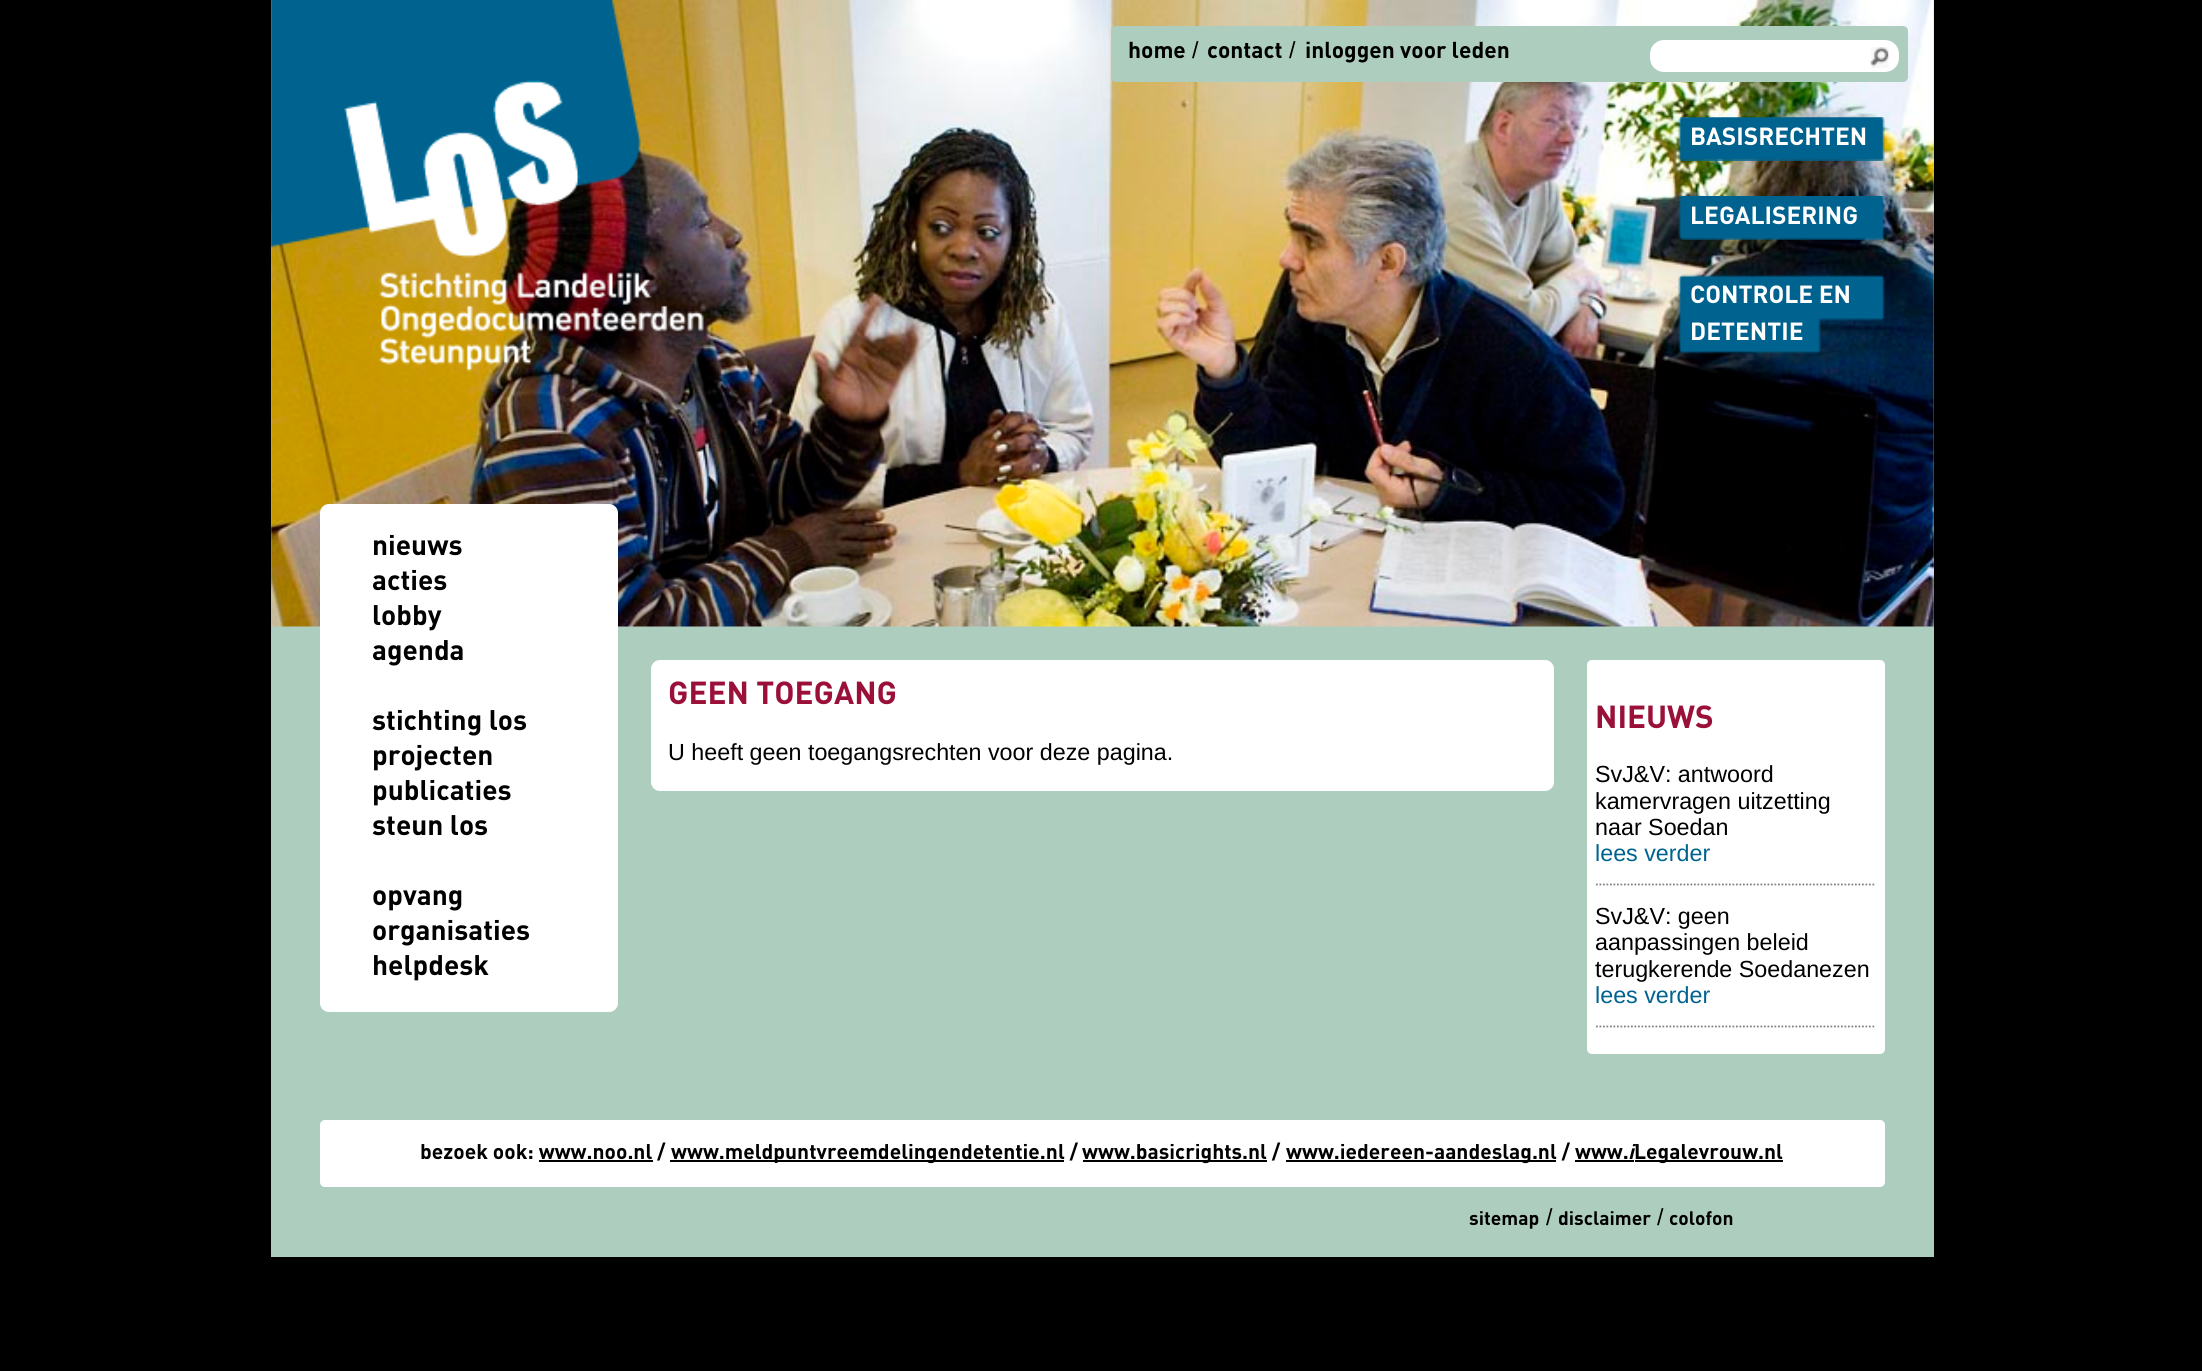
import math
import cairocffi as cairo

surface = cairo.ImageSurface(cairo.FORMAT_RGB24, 2202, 1371)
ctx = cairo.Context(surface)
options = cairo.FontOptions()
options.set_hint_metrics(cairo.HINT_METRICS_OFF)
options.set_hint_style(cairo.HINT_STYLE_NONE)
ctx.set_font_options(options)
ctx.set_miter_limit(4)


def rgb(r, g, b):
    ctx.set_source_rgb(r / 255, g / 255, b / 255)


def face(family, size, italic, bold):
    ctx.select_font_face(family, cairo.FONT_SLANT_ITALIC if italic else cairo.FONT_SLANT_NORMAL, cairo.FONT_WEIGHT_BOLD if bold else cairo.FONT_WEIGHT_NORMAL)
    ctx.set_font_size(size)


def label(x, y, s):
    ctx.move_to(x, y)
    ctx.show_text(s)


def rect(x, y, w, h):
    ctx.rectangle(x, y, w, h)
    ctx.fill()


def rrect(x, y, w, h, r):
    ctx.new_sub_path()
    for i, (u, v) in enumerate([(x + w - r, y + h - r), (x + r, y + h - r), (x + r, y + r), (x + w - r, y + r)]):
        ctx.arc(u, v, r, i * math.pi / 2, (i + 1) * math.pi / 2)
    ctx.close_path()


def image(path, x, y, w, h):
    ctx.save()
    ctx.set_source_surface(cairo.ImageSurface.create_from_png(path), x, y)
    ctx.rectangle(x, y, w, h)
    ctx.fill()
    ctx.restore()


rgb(0, 0, 0)
ctx.paint()
rgb(173, 206, 190)
rect(271, 0, 1663, 1257)
image('image0.png', 271, 0, 1663, 627)
image('image1.png', 271, 0, 433, 372)
rrect(1111, 26, 797, 56, 5)
ctx.fill()
face('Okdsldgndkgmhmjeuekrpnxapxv', 22.75, 0, 1)
rgb(0, 0, 0)
label(1128, 58, 'home')
face('Liberation Sans', 23.3, 0, 0)
label(1192, 58, '/')
face('Okdsldgndkgmhmjeuekrpnxapxv', 22.75, 0, 1)
label(1207, 58, 'contact')
face('Liberation Sans', 23.3, 0, 0)
label(1289, 58, '/')
face('Okdsldgndkgmhmjeuekrpnxapxv', 22.75, 0, 1)
label(1305, 58, 'inloggen voor leden')
rgb(255, 255, 255)
rrect(1650, 40, 249, 32, 14)
ctx.fill()
image('image2.png', 1870, 47, 19, 21)
image('image3.png', 1678, 117, 207, 44)
face('Okdsldgndkgmhmjeuekrpnxapxv', 24.5, 0, 1)
label(1690, 145, 'BASISRECHTEN')
image('image4.png', 1678, 196, 207, 44)
label(1690, 224, 'LEGALISERING')
image('image5.png', 1678, 274, 207, 80)
label(1690, 303, 'CONTROLE EN')
label(1690, 340, 'DETENTIE')
rrect(320, 504, 298, 508, 9)
ctx.fill()
face('Okdsldgndkgmhmjeuekrpnxapxv', 28, 0, 1)
rgb(0, 0, 0)
label(372, 555, 'nieuws')
label(372, 590, 'acties')
label(372, 625, 'lobby')
label(372, 660, 'agenda')
label(372, 730, 'stichting los')
label(372, 765, 'projecten')
label(372, 800, 'publicaties')
label(372, 835, 'steun los')
label(372, 905, 'opvang')
label(372, 940, 'organisaties')
label(372, 975, 'helpdesk')
rgb(255, 255, 255)
rrect(651, 660, 903, 131, 9)
ctx.fill()
face('Okdsldgndkgmhmjeuekrpnxapxv', 31.5, 0, 1)
rgb(155, 16, 57)
label(668, 704, 'GEEN TOEGANG')
face('Liberation Sans', 23.3, 0, 0)
rgb(0, 0, 0)
label(668, 760, 'U heeft geen toegangsrechten voor deze pagina.')
rgb(255, 255, 255)
rrect(1587, 660, 298, 394, 5)
ctx.fill()
face('Okdsldgndkgmhmjeuekrpnxapxv', 31.5, 0, 1)
rgb(155, 16, 57)
label(1595, 728, 'NIEUWS')
ctx.new_path()
ctx.move_to(1596, 884.5)
ctx.line_to(1876, 884.5)
rgb(128, 128, 128)
ctx.set_line_width(1.8)
ctx.set_dash([1.75, 1.75])
ctx.stroke()
face('Liberation Sans', 23.3, 0, 0)
rgb(0, 0, 0)
label(1595, 782, 'SvJ&V: antwoord')
label(1595, 809, 'kamervragen uitzetting')
label(1595, 835, 'naar Soedan')
rgb(0, 99, 143)
label(1595, 861, 'lees verder')
ctx.new_path()
ctx.move_to(1596, 1026.5)
ctx.line_to(1876, 1026.5)
rgb(128, 128, 128)
ctx.stroke()
rgb(0, 0, 0)
label(1595, 924, 'SvJ&V: geen')
label(1595, 950, 'aanpassingen beleid')
label(1595, 977, 'terugkerende Soedanezen')
rgb(0, 99, 143)
label(1595, 1003, 'lees verder')
rgb(255, 255, 255)
rrect(320, 1120, 1565, 67, 5)
ctx.fill()
face('Okdsldgndkgmhmjeuekrpnxapxv', 21, 0, 1)
rgb(0, 0, 0)
label(420, 1159, 'bezoek ook: www.noo.nl /')
rect(670, 1160, 394, 2)
label(671, 1159, 'www.meldpuntvreemdelingendetentie.nl /')
rect(1083, 1160, 184, 2)
label(1082, 1159, 'www.basicrights.nl /')
rect(1286, 1160, 270, 2)
label(1286, 1159, 'www.iedereen-aandeslag.nl / www.')
face('Okdsldgndkgmhmjeuekrpnxapxv', 21, 1, 1)
label(1628, 1159, 'i')
rect(1635, 1160, 148, 2)
face('Okdsldgndkgmhmjeuekrpnxapxv', 21, 0, 1)
label(1634, 1159, 'Legalevrouw.nl')
rect(1575, 1160, 59, 2)
rect(539, 1160, 114, 2)
face('Okdsldgndkgmhmjeuekrpnxapxv', 19.25, 0, 1)
label(1469, 1225, 'sitemap')
face('Liberation Sans', 23.3, 0, 0)
label(1546, 1225, '/')
face('Okdsldgndkgmhmjeuekrpnxapxv', 19.25, 0, 1)
label(1558, 1225, 'disclaimer')
face('Liberation Sans', 23.3, 0, 0)
label(1657, 1225, '/')
face('Okdsldgndkgmhmjeuekrpnxapxv', 19.25, 0, 1)
label(1669, 1225, 'colofon')
surface.write_to_png('render.png')
